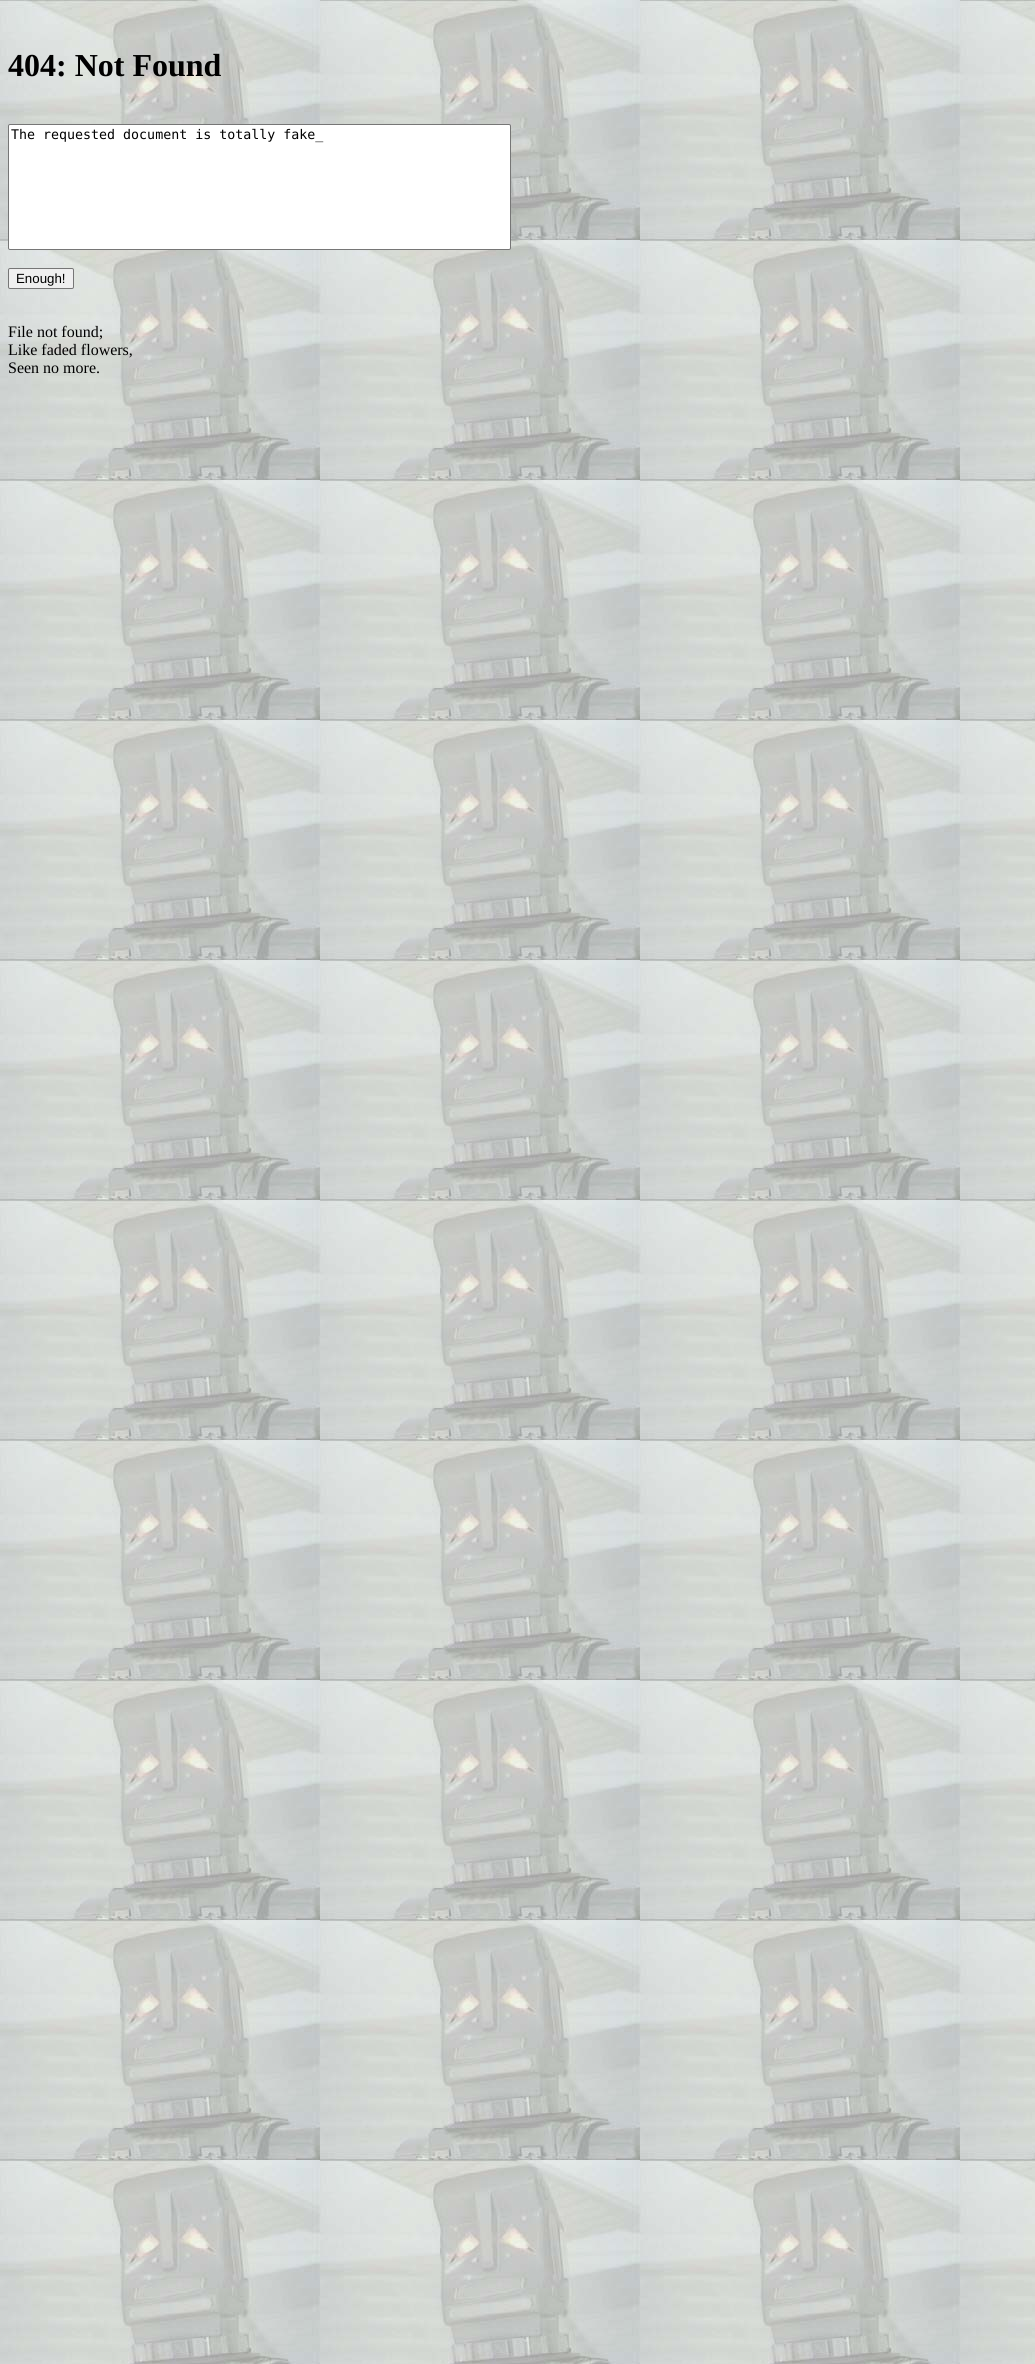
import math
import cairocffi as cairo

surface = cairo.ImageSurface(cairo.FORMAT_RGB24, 1035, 2364)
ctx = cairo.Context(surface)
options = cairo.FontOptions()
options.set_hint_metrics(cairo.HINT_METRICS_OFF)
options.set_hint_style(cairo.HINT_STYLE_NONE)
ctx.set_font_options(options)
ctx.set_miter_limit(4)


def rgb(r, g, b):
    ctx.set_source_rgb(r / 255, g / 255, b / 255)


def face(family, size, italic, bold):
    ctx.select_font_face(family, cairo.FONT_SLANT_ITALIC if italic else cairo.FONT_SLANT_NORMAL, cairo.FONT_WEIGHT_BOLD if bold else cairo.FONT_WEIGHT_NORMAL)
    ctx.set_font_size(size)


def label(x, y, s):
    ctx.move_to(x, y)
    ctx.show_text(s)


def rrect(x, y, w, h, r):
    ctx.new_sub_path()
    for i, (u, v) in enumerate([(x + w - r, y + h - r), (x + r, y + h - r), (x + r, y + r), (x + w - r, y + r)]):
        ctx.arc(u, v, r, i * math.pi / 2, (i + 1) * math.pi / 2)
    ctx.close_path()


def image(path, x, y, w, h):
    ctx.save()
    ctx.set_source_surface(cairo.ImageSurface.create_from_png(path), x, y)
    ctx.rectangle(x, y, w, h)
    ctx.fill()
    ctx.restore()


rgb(255, 255, 255)
ctx.paint()
image('image0.png', 0, 0, 1035, 2364)
face('Liberation Serif', 32, 0, 1)
rgb(0, 0, 0)
label(8, 76, '404: Not Found')
rgb(255, 255, 255)
rrect(8.5, 124.5, 502, 125, 1.5)
ctx.fill_preserve()
rgb(118, 118, 118)
ctx.set_line_width(1)
ctx.stroke()
face('DejaVu Sans Mono', 13.3, 0, 0)
rgb(0, 0, 0)
label(11, 139, 'The requested document is totally fake_')
rgb(239, 239, 239)
rrect(8.5, 268.5, 65, 20, 1.5)
ctx.fill_preserve()
rgb(118, 118, 118)
ctx.stroke()
face('Liberation Sans', 13.3, 0, 0)
rgb(0, 0, 0)
label(16, 283, 'Enough!')
face('Liberation Serif', 16, 0, 0)
label(8, 337, 'File not found;')
label(8, 355, 'Like faded flowers,')
label(8, 373, 'Seen no more.')
surface.write_to_png('render.png')
